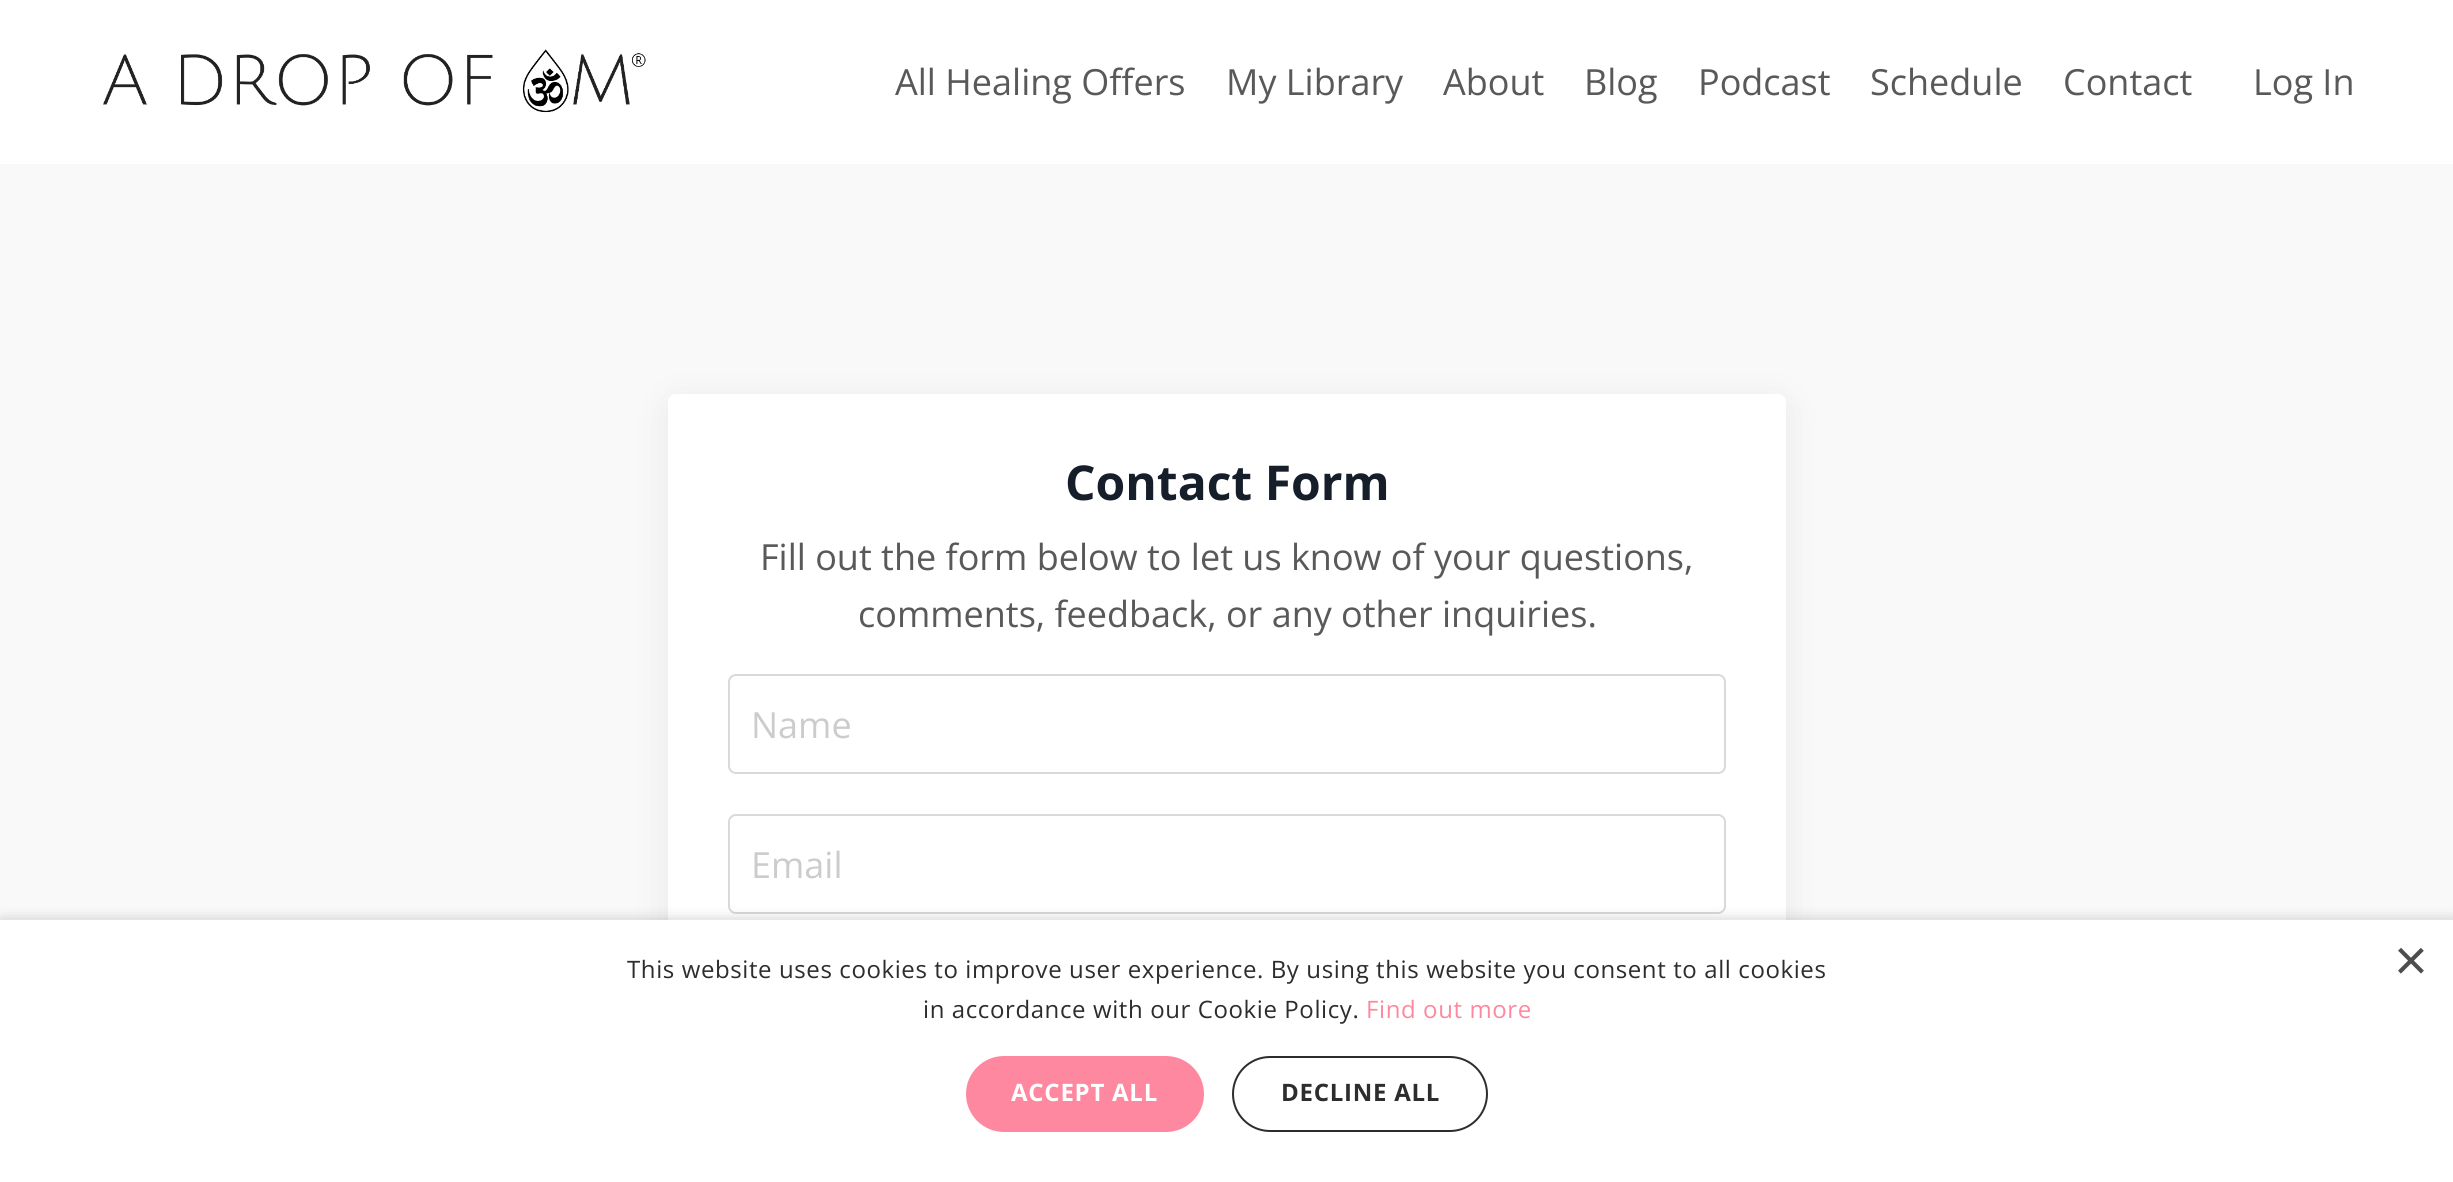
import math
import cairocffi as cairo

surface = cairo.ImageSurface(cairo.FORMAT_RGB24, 2453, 1182)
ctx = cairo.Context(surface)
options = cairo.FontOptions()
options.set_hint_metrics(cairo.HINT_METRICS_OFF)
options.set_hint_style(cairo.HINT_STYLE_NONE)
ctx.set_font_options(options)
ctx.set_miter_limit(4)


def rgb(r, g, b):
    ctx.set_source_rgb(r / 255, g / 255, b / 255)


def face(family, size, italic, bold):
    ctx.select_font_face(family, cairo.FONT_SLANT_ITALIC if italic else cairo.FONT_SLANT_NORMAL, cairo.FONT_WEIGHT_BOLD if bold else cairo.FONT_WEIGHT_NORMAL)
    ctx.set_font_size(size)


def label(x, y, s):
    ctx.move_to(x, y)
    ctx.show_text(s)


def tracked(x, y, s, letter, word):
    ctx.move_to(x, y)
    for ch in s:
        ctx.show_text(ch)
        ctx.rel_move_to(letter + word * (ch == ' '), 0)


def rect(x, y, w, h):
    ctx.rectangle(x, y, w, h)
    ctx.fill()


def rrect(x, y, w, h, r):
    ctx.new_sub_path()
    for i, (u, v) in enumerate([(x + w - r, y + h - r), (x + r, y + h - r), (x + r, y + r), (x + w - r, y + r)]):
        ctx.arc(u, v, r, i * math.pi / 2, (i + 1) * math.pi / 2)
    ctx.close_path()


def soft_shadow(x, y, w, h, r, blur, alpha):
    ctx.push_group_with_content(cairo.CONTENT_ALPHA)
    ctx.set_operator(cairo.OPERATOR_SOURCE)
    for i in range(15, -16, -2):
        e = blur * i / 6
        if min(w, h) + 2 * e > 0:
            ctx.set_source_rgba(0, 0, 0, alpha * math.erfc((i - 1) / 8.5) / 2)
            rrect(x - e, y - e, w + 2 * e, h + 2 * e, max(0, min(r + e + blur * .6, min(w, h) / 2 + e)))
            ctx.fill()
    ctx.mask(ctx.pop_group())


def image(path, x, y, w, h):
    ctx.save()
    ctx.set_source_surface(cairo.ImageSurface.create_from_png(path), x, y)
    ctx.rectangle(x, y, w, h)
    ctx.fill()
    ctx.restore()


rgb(255, 255, 255)
ctx.paint()
image('image0.png', 103, 49, 543, 64)
face('Open Sans', 36, 0, 0)
rgb(89, 89, 89)
label(895, 95, 'All Healing Offers')
label(1226, 95, 'My Library')
label(1443, 95, 'About')
label(1584, 95, 'Blog')
label(1698, 95, 'Podcast')
label(1870, 95, 'Schedule')
label(2063, 95, 'Contact')
label(2253, 95, 'Log In')
rgb(249, 249, 249)
rect(0, 164, 2453, 756)
rgb(0, 0, 0)
soft_shadow(668, 402, 1118, 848, 8, 20, 0.07)
rgb(255, 255, 255)
rrect(668, 394, 1118, 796, 8)
ctx.fill()
face('Open Sans', 48, 0, 1)
rgb(22, 30, 42)
label(1065, 500, 'Contact Form')
face('Open Sans', 36, 0, 0)
rgb(89, 89, 89)
label(760, 570, 'Fill out the form below to let us know of your questions,')
label(858, 627, 'comments, feedback, or any other inquiries.')
rrect(729, 675, 996, 98, 7)
rgb(217, 217, 217)
ctx.stroke()
rgb(204, 204, 204)
label(751, 738, 'Name')
rrect(729, 815, 996, 98, 7)
rgb(217, 217, 217)
ctx.stroke()
rgb(204, 204, 204)
label(751, 878, 'Email')
rgb(0, 0, 0)
soft_shadow(2, 924, 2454, 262, 0, 8, 0.35)
rgb(255, 255, 255)
rect(0, 920, 2453, 262)
face('Open Sans', 24, 0, 0)
rgb(45, 45, 45)
tracked(627, 978, 'This website uses cookies to improve user experience. By using this website you consent to all cookies', 0.6, 0)
tracked(923, 1018, 'in accordance with our Cookie Policy.', 0.6, 0)
rgb(254, 136, 159)
tracked(1366, 1018, 'Find out more', 0.6, 0)
face('Liberation Sans', 58, 0, 0)
rgb(77, 77, 77)
label(2394, 980, '×')
rgb(254, 136, 159)
rrect(966, 1056, 238, 76, 38)
ctx.fill()
face('Open Sans', 24, 0, 1)
rgb(255, 255, 255)
tracked(1011, 1101, 'ACCEPT ALL', 0.75, 0)
rrect(1233, 1057, 254, 74, 37)
rgb(45, 45, 45)
ctx.stroke()
tracked(1281, 1101, 'DECLINE ALL', 0.75, 0)
surface.write_to_png('render.png')
